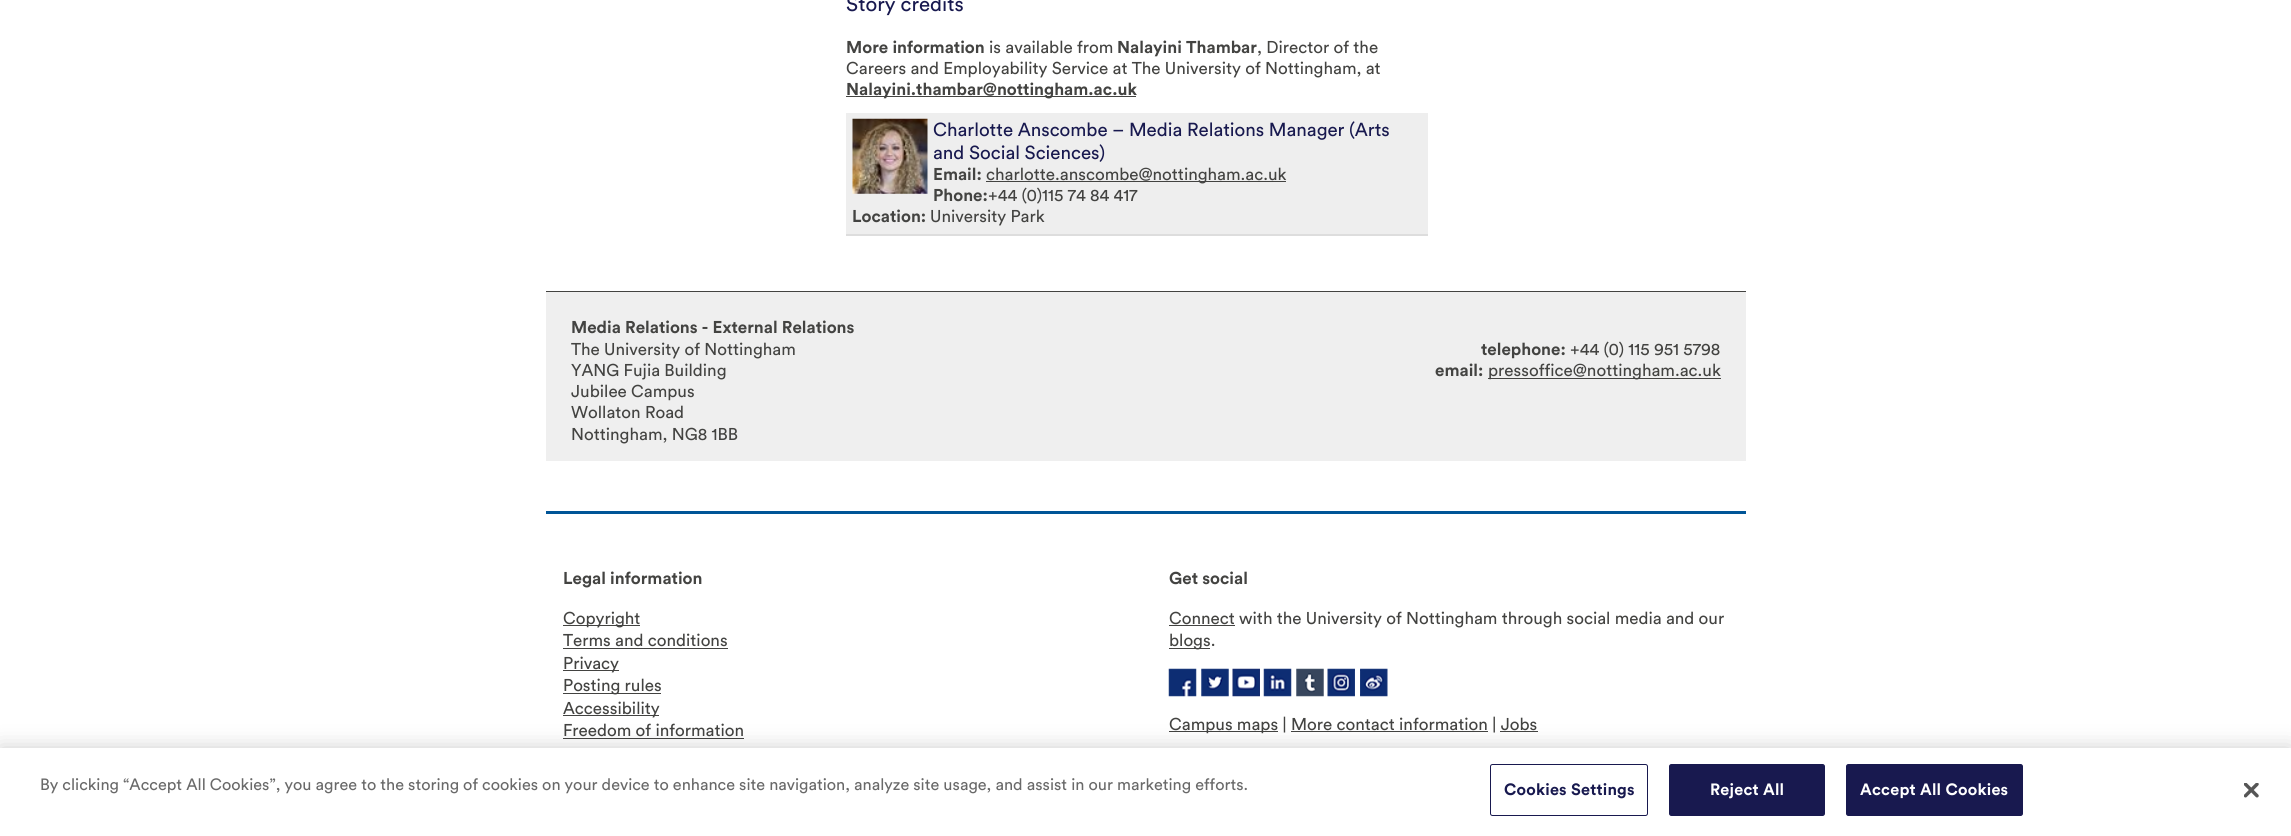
import math
import cairocffi as cairo

surface = cairo.ImageSurface(cairo.FORMAT_RGB24, 2291, 836)
ctx = cairo.Context(surface)
options = cairo.FontOptions()
options.set_hint_metrics(cairo.HINT_METRICS_OFF)
options.set_hint_style(cairo.HINT_STYLE_NONE)
ctx.set_font_options(options)
ctx.set_miter_limit(4)


def rgb(r, g, b):
    ctx.set_source_rgb(r / 255, g / 255, b / 255)


def face(family, size, italic, bold):
    ctx.select_font_face(family, cairo.FONT_SLANT_ITALIC if italic else cairo.FONT_SLANT_NORMAL, cairo.FONT_WEIGHT_BOLD if bold else cairo.FONT_WEIGHT_NORMAL)
    ctx.set_font_size(size)


def label(x, y, s):
    ctx.move_to(x, y)
    ctx.show_text(s)


def tracked(x, y, s, letter, word):
    ctx.move_to(x, y)
    for ch in s:
        ctx.show_text(ch)
        ctx.rel_move_to(letter + word * (ch == ' '), 0)


def rect(x, y, w, h):
    ctx.rectangle(x, y, w, h)
    ctx.fill()


def rrect(x, y, w, h, r):
    ctx.new_sub_path()
    for i, (u, v) in enumerate([(x + w - r, y + h - r), (x + r, y + h - r), (x + r, y + r), (x + w - r, y + r)]):
        ctx.arc(u, v, r, i * math.pi / 2, (i + 1) * math.pi / 2)
    ctx.close_path()


def soft_shadow(x, y, w, h, r, blur, alpha):
    ctx.push_group_with_content(cairo.CONTENT_ALPHA)
    ctx.set_operator(cairo.OPERATOR_SOURCE)
    for i in range(15, -16, -2):
        e = blur * i / 6
        if min(w, h) + 2 * e > 0:
            ctx.set_source_rgba(0, 0, 0, alpha * math.erfc((i - 1) / 8.5) / 2)
            rrect(x - e, y - e, w + 2 * e, h + 2 * e, max(0, min(r + e + blur * .6, min(w, h) / 2 + e)))
            ctx.fill()
    ctx.mask(ctx.pop_group())


def image(path, x, y, w, h):
    ctx.save()
    ctx.set_source_surface(cairo.ImageSurface.create_from_png(path), x, y)
    ctx.rectangle(x, y, w, h)
    ctx.fill()
    ctx.restore()


rgb(255, 255, 255)
ctx.paint()
face('Circular', 20.5, 0, 0)
rgb(24, 25, 79)
label(846, 11, 'Story credits')
face('Circular', 17, 0, 1)
rgb(67, 67, 65)
label(846, 53, 'More information')
face('Circular', 17, 0, 0)
label(989, 53, 'is available from')
face('Circular', 17, 0, 1)
label(1117, 53, 'Nalayini Thambar')
face('Circular', 17, 0, 0)
label(1257, 53, ', Director of the')
label(846, 74, 'Careers and Employability Service at The University of Nottingham, at')
rect(846, 96, 290, 1)
face('Circular', 17, 0, 1)
label(846, 95, 'Nalayini.thambar@nottingham.ac.uk')
rgb(238, 238, 238)
rect(846, 113, 582, 121)
rgb(221, 221, 221)
rect(846, 234, 582, 2)
image('image0.png', 852, 118, 76, 76)
face('Circular', 18.7, 0, 0)
rgb(24, 25, 79)
label(933, 136, 'Charlotte Anscombe – Media Relations Manager (Arts')
label(933, 159, 'and Social Sciences)')
face('Circular', 17, 0, 1)
rgb(67, 67, 65)
label(933, 180, 'Email:')
rect(986, 181, 300, 1)
face('Circular', 17, 0, 0)
label(986, 180, 'charlotte.anscombe@nottingham.ac.uk')
face('Circular', 17, 0, 1)
label(933, 201, 'Phone:')
face('Circular', 17, 0, 0)
label(988, 201, '+44 (0)115 74 84 417')
face('Circular', 17, 0, 1)
label(852, 222, 'Location:')
face('Circular', 17, 0, 0)
label(930, 222, 'University Park')
rgb(239, 239, 239)
rect(546, 292, 1200, 169)
rgb(67, 67, 65)
rect(546, 291, 1200, 1)
face('Circular', 17, 0, 1)
label(571, 333, 'Media Relations - External Relations')
face('Circular', 17, 0, 0)
label(571, 355, 'The University of Nottingham')
label(571, 376, 'YANG Fujia Building')
label(571, 397, 'Jubilee Campus')
label(571, 418, 'Wollaton Road')
label(571, 440, 'Nottingham, NG8 1BB')
face('Circular', 17, 0, 1)
label(1481, 355, 'telephone:')
face('Circular', 17, 0, 0)
label(1570, 355, '+44 (0) 115 951 5798')
face('Circular', 17, 0, 1)
label(1435, 376, 'email:')
rect(1488, 378, 233, 1)
face('Circular', 17, 0, 0)
label(1488, 376, 'pressoffice@nottingham.ac.uk')
rgb(0, 85, 151)
rect(546, 511, 1200, 3)
face('Circular', 17, 0, 1)
rgb(67, 67, 65)
label(563, 584, 'Legal information')
rect(563, 625, 77, 1)
face('Circular', 17, 0, 0)
label(563, 624, 'Copyright')
label(563, 646, 'Terms and conditions')
rect(563, 648, 165, 1)
rect(563, 670, 56, 1)
label(563, 669, 'Privacy')
rect(563, 693, 98, 1)
label(563, 691, 'Posting rules')
rect(563, 715, 96, 1)
label(563, 714, 'Accessibility')
label(563, 736, 'Freedom of information')
rect(563, 738, 181, 1)
face('Circular', 17, 0, 1)
label(1169, 584, 'Get social')
rect(1169, 625, 66, 1)
face('Circular', 17, 0, 0)
label(1169, 624, 'Connect with the University of Nottingham through social media and our')
rect(1169, 648, 41, 1)
label(1169, 646, 'blogs.')
image('image1.png', 1168, 668, 29, 29)
image('image2.png', 1201, 668, 28, 29)
image('image3.png', 1232, 668, 28, 29)
image('image4.png', 1263, 668, 29, 29)
image('image5.png', 1296, 668, 28, 29)
image('image6.png', 1327, 668, 28, 29)
image('image7.png', 1360, 668, 28, 29)
rect(1169, 731, 109, 1)
label(1169, 730, 'Campus maps | More contact information | Jobs')
rect(1291, 731, 197, 1)
rect(1500, 731, 38, 1)
rgb(0, 0, 0)
soft_shadow(0, 748, 2291, 88, 0, 11, 0.2)
rgb(255, 255, 255)
rect(0, 748, 2291, 88)
face('Circular', 16.25, 0, 0)
rgb(105, 105, 105)
label(40, 790, 'By clicking “Accept All Cookies”, you agree to the storing of cookies on your device to enhance site navigation, analyze site usage, and assist in our marketing efforts.')
rrect(1490.5, 764.5, 157, 51, 2)
rgb(24, 25, 79)
ctx.set_line_width(1)
ctx.stroke()
face('Circular', 16.25, 0, 1)
tracked(1504, 795, 'Cookies Settings', 0.2, 0)
rrect(1669.5, 764.5, 155, 51, 2)
ctx.fill_preserve()
ctx.stroke()
rgb(255, 255, 255)
tracked(1710, 795, 'Reject All', 0.2, 0)
rgb(24, 25, 79)
rrect(1846.5, 764.5, 176, 51, 2)
ctx.fill_preserve()
ctx.stroke()
rgb(255, 255, 255)
tracked(1860, 795, 'Accept All Cookies', 0.2, 0)
image('image8.png', 2244, 783, 15, 15)
surface.write_to_png('render.png')
